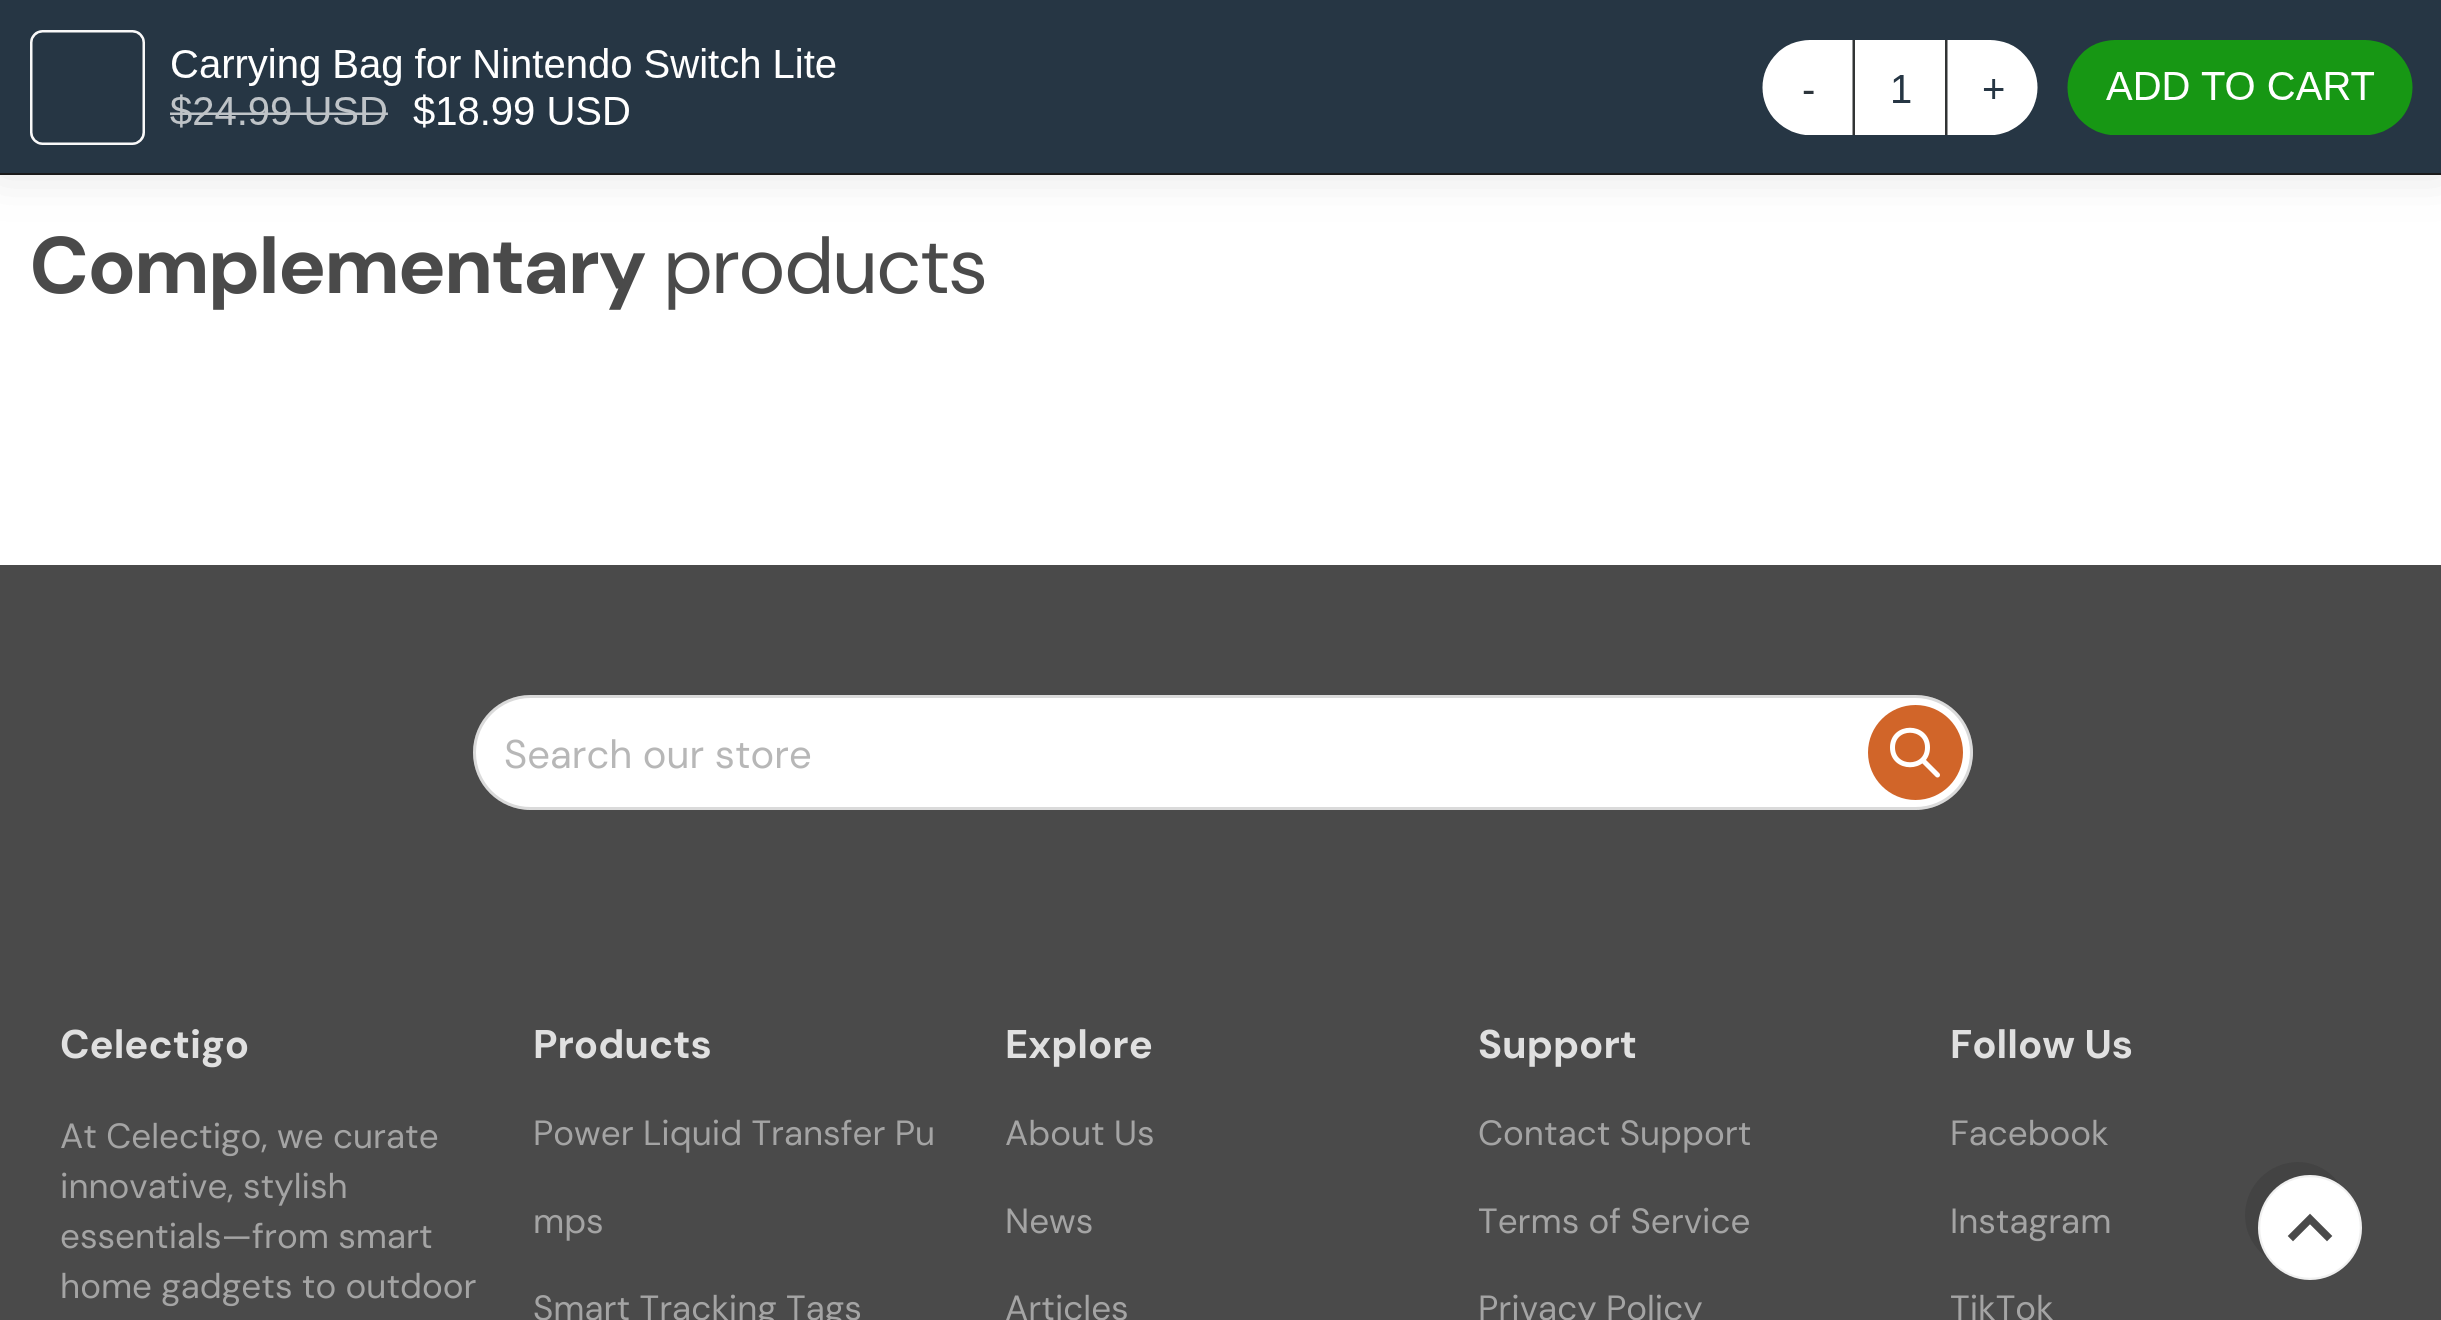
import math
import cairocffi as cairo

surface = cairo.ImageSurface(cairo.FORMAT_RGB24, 2441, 1320)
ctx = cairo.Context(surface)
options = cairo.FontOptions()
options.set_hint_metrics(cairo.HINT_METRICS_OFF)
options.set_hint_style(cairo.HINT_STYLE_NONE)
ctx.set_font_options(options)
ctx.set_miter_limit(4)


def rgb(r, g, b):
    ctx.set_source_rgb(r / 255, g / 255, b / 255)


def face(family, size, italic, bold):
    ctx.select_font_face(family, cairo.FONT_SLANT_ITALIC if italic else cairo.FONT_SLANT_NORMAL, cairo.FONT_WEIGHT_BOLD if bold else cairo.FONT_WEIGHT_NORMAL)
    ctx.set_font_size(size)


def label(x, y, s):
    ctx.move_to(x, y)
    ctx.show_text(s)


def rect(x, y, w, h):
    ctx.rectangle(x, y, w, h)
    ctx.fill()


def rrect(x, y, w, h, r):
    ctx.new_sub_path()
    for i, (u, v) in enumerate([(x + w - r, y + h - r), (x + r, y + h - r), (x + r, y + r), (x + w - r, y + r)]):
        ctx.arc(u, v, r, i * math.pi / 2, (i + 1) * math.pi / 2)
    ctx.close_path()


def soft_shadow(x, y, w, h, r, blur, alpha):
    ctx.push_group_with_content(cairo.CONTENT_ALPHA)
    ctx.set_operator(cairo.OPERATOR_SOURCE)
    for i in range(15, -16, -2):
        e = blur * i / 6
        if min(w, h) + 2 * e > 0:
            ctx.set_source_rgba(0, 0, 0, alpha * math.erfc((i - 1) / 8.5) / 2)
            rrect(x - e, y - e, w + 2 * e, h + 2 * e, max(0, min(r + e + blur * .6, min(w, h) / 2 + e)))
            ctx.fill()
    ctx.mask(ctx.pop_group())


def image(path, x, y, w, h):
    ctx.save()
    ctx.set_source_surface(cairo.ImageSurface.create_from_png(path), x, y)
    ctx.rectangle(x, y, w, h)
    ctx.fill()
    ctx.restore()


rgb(255, 255, 255)
ctx.paint()
rgb(74, 74, 74)
soft_shadow(0, -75, 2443, 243, 0, 25, 0.2)
rgb(26, 26, 26)
rect(0, 173, 2441, 2)
image('image0.png', 0, 0, 2441, 173)
face('DM Sans', 80, 0, 1)
rgb(74, 74, 74)
label(30, 293, 'Complementary')
face('DM Sans', 80, 0, 0)
label(664, 293, 'products')
rect(0, 565, 2441, 755)
rgb(255, 255, 255)
rrect(473, 695, 1500, 115, 57.5)
ctx.fill()
rrect(474.5, 696.5, 1497, 112, 56)
ctx.set_source_rgba(0.29, 0.29, 0.29, 0.2)
ctx.set_line_width(3)
ctx.stroke()
face('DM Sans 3', 40, 0, 0)
rgb(183, 183, 183)
label(504, 768, 'Search our store')
rgb(209, 101, 41)
ctx.new_path()
ctx.arc(1915.5, 752.5, 46, 0, 2 * math.pi)
ctx.fill_preserve()
ctx.stroke()
ctx.new_path()
ctx.move_to(1937.5, 775)
ctx.line_to(1922.5, 760)
ctx.move_to(1927.5, 747.5)
ctx.curve_to(1927.5, 770.5, 1892.5, 770.5, 1892.5, 747.5)
ctx.curve_to(1892.5, 724.5, 1927.5, 724.5, 1927.5, 747.5)
ctx.close_path()
rgb(255, 255, 255)
ctx.set_line_width(5)
ctx.set_line_cap(cairo.LINE_CAP_ROUND)
ctx.set_line_join(cairo.LINE_JOIN_ROUND)
ctx.stroke()
face('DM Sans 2', 40, 0, 1)
rgb(224, 224, 224)
label(60, 1058, 'Celectigo')
face('DM Sans 2', 35, 0, 0)
rgb(164, 164, 164)
label(60, 1148, 'At Celectigo, we curate')
label(60, 1198, 'innovative, stylish')
label(60, 1248, 'essentials—from smart')
label(60, 1298, 'home gadgets to outdoor')
face('DM Sans 2', 40, 0, 1)
rgb(224, 224, 224)
label(533, 1058, 'Products')
face('DM Sans 2', 35, 0, 0)
rgb(164, 164, 164)
label(533, 1145, 'Power Liquid Transfer Pu')
label(533, 1233, 'mps')
label(533, 1320, 'Smart Tracking Tags')
face('DM Sans 2', 40, 0, 1)
rgb(224, 224, 224)
label(1005, 1058, 'Explore')
face('DM Sans 2', 35, 0, 0)
rgb(164, 164, 164)
label(1005, 1145, 'About Us')
label(1005, 1233, 'News')
label(1005, 1320, 'Articles')
face('DM Sans 2', 40, 0, 1)
rgb(224, 224, 224)
label(1478, 1058, 'Support')
face('DM Sans 2', 35, 0, 0)
rgb(164, 164, 164)
label(1478, 1145, 'Contact Support')
label(1478, 1233, 'Terms of Service')
label(1478, 1320, 'Privacy Policy')
face('DM Sans 2', 40, 0, 1)
rgb(224, 224, 224)
label(1950, 1058, 'Follow Us')
face('DM Sans 2', 35, 0, 0)
rgb(164, 164, 164)
label(1950, 1145, 'Facebook')
label(1950, 1233, 'Instagram')
label(1950, 1320, 'TikTok')
rgb(67, 67, 67)
ctx.new_path()
ctx.move_to(2340, 1185)
ctx.curve_to(2320, 1170, 2291, 1172, 2273, 1190)
ctx.curve_to(2255, 1208, 2253, 1238, 2267, 1258)
ctx.curve_to(2254, 1248, 2245, 1233, 2245, 1215)
ctx.curve_to(2245, 1186, 2269, 1162, 2298, 1162)
ctx.curve_to(2315, 1162, 2331, 1171, 2340, 1185)
ctx.close_path()
ctx.fill()
rgb(255, 255, 255)
ctx.new_path()
ctx.move_to(2310, 1280)
ctx.curve_to(2281, 1280, 2258, 1256, 2258, 1228)
ctx.curve_to(2258, 1199, 2281, 1175, 2310, 1175)
ctx.curve_to(2339, 1175, 2362, 1199, 2362, 1228)
ctx.curve_to(2362, 1256, 2339, 1280, 2310, 1280)
ctx.close_path()
ctx.fill()
ctx.new_path()
ctx.move_to(2310, 1279)
ctx.curve_to(2281.5, 1279, 2259, 1256, 2259, 1227.5)
ctx.curve_to(2259, 1199, 2281.5, 1176, 2310, 1176)
ctx.curve_to(2338.5, 1176, 2361, 1199, 2361, 1227.5)
ctx.curve_to(2361, 1256, 2338.5, 1279, 2310, 1279)
ctx.close_path()
ctx.set_source_rgba(0.29, 0.29, 0.29, 0.08)
ctx.set_line_width(2.5)
ctx.set_line_cap(cairo.LINE_CAP_BUTT)
ctx.set_line_join(cairo.LINE_JOIN_MITER)
ctx.stroke()
ctx.new_path()
ctx.move_to(2327, 1236)
ctx.line_to(2310, 1219)
ctx.line_to(2293, 1236)
rgb(74, 74, 74)
ctx.set_line_width(7.5)
ctx.set_line_cap(cairo.LINE_CAP_SQUARE)
ctx.stroke()
surface.write_to_png('render.png')
